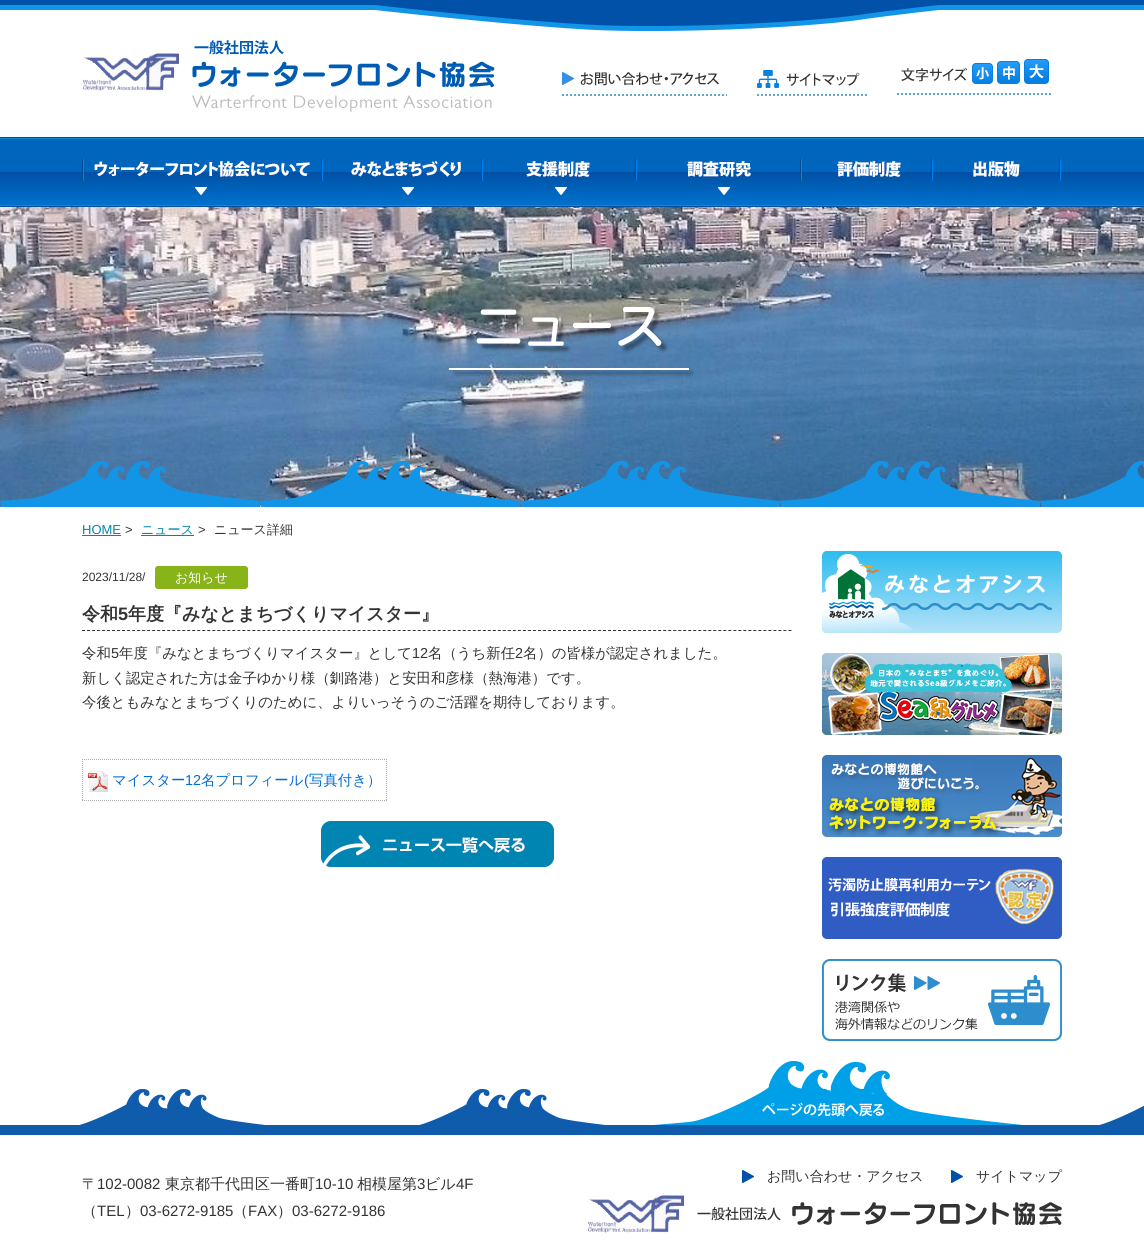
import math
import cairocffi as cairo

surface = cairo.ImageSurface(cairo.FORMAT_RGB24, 1144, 1256)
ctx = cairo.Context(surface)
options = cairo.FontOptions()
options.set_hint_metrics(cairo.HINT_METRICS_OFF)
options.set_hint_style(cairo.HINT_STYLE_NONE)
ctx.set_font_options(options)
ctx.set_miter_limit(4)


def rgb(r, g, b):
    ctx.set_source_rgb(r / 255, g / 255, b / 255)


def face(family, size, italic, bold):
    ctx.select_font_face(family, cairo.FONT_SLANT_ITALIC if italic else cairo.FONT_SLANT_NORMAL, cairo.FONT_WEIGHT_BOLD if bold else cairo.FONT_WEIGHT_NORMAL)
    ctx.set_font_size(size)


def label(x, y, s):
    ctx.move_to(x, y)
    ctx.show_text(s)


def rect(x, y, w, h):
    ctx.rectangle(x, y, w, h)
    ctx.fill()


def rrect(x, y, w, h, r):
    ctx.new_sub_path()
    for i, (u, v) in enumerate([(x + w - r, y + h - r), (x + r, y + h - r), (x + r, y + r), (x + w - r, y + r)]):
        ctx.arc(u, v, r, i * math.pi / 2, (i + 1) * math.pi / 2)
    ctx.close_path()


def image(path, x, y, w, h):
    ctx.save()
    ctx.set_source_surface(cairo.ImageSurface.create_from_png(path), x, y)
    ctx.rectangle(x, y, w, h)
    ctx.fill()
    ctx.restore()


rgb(255, 255, 255)
ctx.paint()
image('image0.png', 0, 0, 1144, 10)
image('image1.png', 375, 5, 564, 26)
image('image2.png', 83, 40, 412, 72)
ctx.new_path()
ctx.move_to(562, 95)
ctx.line_to(727, 95)
rgb(93, 167, 216)
ctx.set_dash([2, 2])
ctx.stroke()
image('image3.png', 562, 72, 157, 14)
ctx.new_path()
ctx.move_to(757, 95)
ctx.line_to(867, 95)
ctx.stroke()
image('image4.png', 757, 70, 103, 18)
ctx.new_path()
ctx.move_to(897, 94)
ctx.line_to(1052, 94)
ctx.stroke()
image('image5.png', 901, 67, 67, 15)
image('image6.png', 972, 63, 21, 21)
image('image7.png', 997, 61, 23, 23)
image('image8.png', 1024, 59, 25, 25)
image('image9.png', 0, 137, 1144, 70)
image('image10.png', 82, 159, 240, 36)
image('image11.png', 322, 159, 160, 36)
image('image12.png', 482, 159, 154, 36)
image('image13.png', 636, 159, 165, 36)
image('image14.png', 801, 159, 131, 22)
image('image15.png', 932, 159, 129, 22)
image('image16.png', 0, 207, 1144, 300)
image('image17.png', 449, 307, 246, 70)
image('image18.png', 0, 461, 1144, 46)
face('Liberation Sans', 13, 0, 0)
rgb(0, 133, 178)
label(82, 534, 'HOME')
rect(82, 535, 39, 1)
rgb(51, 51, 51)
label(125, 534, '>')
face('WenQuanYi Zen Hei Medium', 13, 0, 0)
rgb(0, 133, 178)
label(141, 534, 'ニュース')
rect(141, 535, 53, 1)
face('Liberation Sans', 13, 0, 0)
rgb(51, 51, 51)
label(198, 534, '>')
face('WenQuanYi Zen Hei Medium', 13, 0, 0)
label(214, 534, 'ニュース詳細')
face('Liberation Sans', 12, 0, 0)
label(82, 581, '2023/11/28/')
rgb(136, 179, 25)
rrect(155, 566, 93, 23, 3)
ctx.fill()
face('WenQuanYi Zen Hei Medium', 13, 0, 0)
rgb(255, 255, 255)
label(175, 582, 'お知らせ')
ctx.new_path()
ctx.move_to(82, 630.5)
ctx.line_to(792, 630.5)
rgb(51, 51, 51)
ctx.set_line_width(1)
ctx.set_dash([3, 2.01])
ctx.stroke()
face('WenQuanYi Zen Hei', 18, 0, 1)
label(82, 620, '令和')
face('Liberation Sans', 18, 0, 1)
label(118, 620, '5')
face('WenQuanYi Zen Hei', 18, 0, 1)
label(128, 620, '年度『みなとまちづくりマイスター』')
face('WenQuanYi Zen Hei Medium', 14.4, 0, 0)
label(82, 658, '令和')
face('Liberation Sans', 14.4, 0, 0)
label(111, 658, '5')
face('WenQuanYi Zen Hei Medium', 14.4, 0, 0)
label(119, 658, '年度『みなとまちづくりマイスター』として')
face('Liberation Sans', 14.4, 0, 0)
label(412, 658, '12')
face('WenQuanYi Zen Hei Medium', 14.4, 0, 0)
label(428, 658, '名（うち新任')
face('Liberation Sans', 14.4, 0, 0)
label(515, 658, '2')
face('WenQuanYi Zen Hei Medium', 14.4, 0, 0)
label(523, 658, '名）の皆様が認定されました。')
label(82, 683, '新しく認定された方は金子ゆかり様（釧路港）と安田和彦様（熱海港）です。')
label(82, 707, '今後ともみなとまちづくりのために、よりいっそうのご活躍を期待しております。')
ctx.new_path()
ctx.move_to(82, 759.5)
ctx.line_to(387, 759.5)
rgb(170, 170, 170)
ctx.set_dash([1, 1])
ctx.stroke()
ctx.new_path()
ctx.move_to(386.5, 759)
ctx.line_to(386.5, 801)
ctx.stroke()
ctx.new_path()
ctx.move_to(82, 800.5)
ctx.line_to(387, 800.5)
ctx.stroke()
ctx.new_path()
ctx.move_to(82.5, 759)
ctx.line_to(82.5, 801)
ctx.stroke()
image('image19.png', 88, 771, 20, 21)
rgb(0, 108, 216)
label(112, 785, 'マイスター')
face('Liberation Sans', 14.4, 0, 0)
label(185, 785, '12')
face('WenQuanYi Zen Hei Medium', 14.4, 0, 0)
label(201, 785, '名プロフィール')
face('Liberation Sans', 14.4, 0, 0)
label(304, 785, '(')
face('WenQuanYi Zen Hei Medium', 14.4, 0, 0)
label(309, 785, '写真付き）')
image('image20.png', 321, 821, 233, 46)
image('image21.png', 822, 551, 240, 82)
image('image22.png', 822, 653, 240, 82)
image('image23.png', 822, 755, 240, 82)
image('image24.png', 822, 857, 240, 82)
image('image25.png', 822, 959, 240, 82)
image('image26.png', 0, 1089, 1144, 46)
image('image27.png', 654, 1061, 369, 64)
face('WenQuanYi Zen Hei Medium', 15, 0, 0)
rgb(51, 51, 51)
label(82, 1189, '〒')
face('Liberation Sans', 15, 0, 0)
label(97, 1189, '102-0082')
face('WenQuanYi Zen Hei Medium', 15, 0, 0)
label(165, 1189, '東京都千代田区一番町')
face('Liberation Sans', 15, 0, 0)
label(315, 1189, '10-10')
face('WenQuanYi Zen Hei Medium', 15, 0, 0)
label(357, 1189, '相模屋第')
face('Liberation Sans', 15, 0, 0)
label(417, 1189, '3')
face('WenQuanYi Zen Hei Medium', 15, 0, 0)
label(425, 1189, 'ビル')
face('Liberation Sans', 15, 0, 0)
label(456, 1189, '4F')
face('WenQuanYi Zen Hei Medium', 15, 0, 0)
label(82, 1216, '（')
face('Liberation Sans', 15, 0, 0)
label(97, 1216, 'TEL')
face('WenQuanYi Zen Hei Medium', 15, 0, 0)
label(125, 1216, '）')
face('Liberation Sans', 15, 0, 0)
label(140, 1216, '03-6272-9185')
face('WenQuanYi Zen Hei Medium', 15, 0, 0)
label(233, 1216, '（')
face('Liberation Sans', 15, 0, 0)
label(248, 1216, 'FAX')
face('WenQuanYi Zen Hei Medium', 15, 0, 0)
label(277, 1216, '）')
face('Liberation Sans', 15, 0, 0)
label(292, 1216, '03-6272-9186')
image('image28.png', 742, 1170, 12, 13)
face('WenQuanYi Zen Hei Medium', 14, 0, 0)
label(767, 1181, 'お問い合わせ・アクセス')
image('image28.png', 951, 1170, 12, 13)
label(976, 1181, 'サイトマップ')
image('image29.png', 588, 1195, 474, 38)
surface.write_to_png('render.png')
